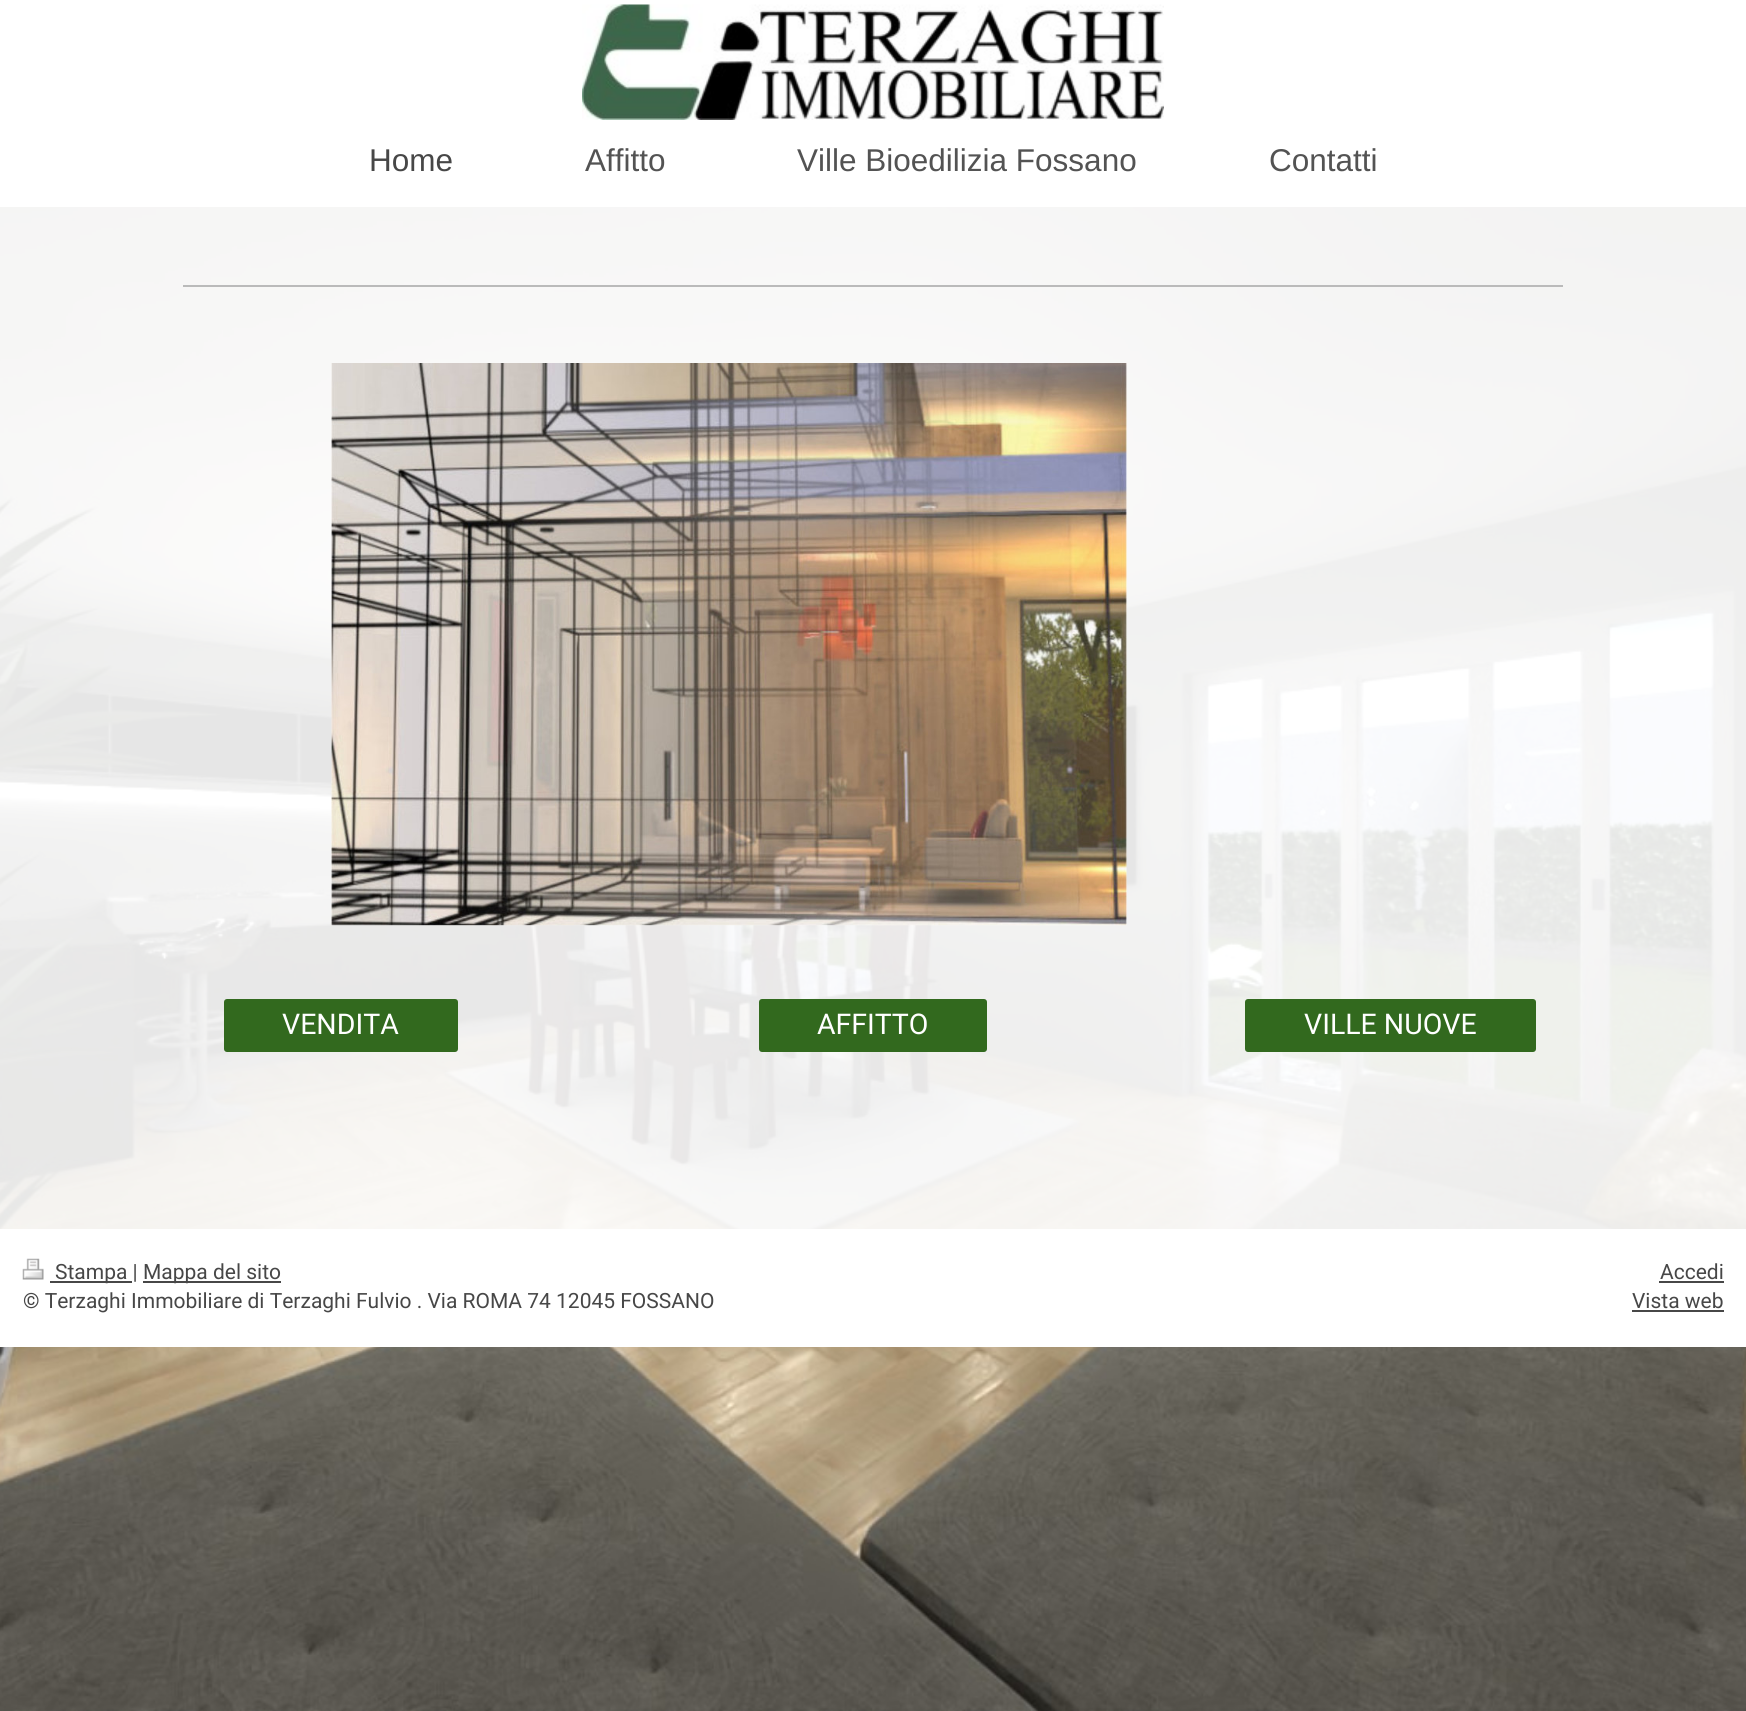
import math
import cairocffi as cairo

surface = cairo.ImageSurface(cairo.FORMAT_RGB24, 1746, 1711)
ctx = cairo.Context(surface)
options = cairo.FontOptions()
options.set_hint_metrics(cairo.HINT_METRICS_OFF)
options.set_hint_style(cairo.HINT_STYLE_NONE)
ctx.set_font_options(options)
ctx.set_miter_limit(4)


def rgb(r, g, b):
    ctx.set_source_rgb(r / 255, g / 255, b / 255)


def face(family, size, italic, bold):
    ctx.select_font_face(family, cairo.FONT_SLANT_ITALIC if italic else cairo.FONT_SLANT_NORMAL, cairo.FONT_WEIGHT_BOLD if bold else cairo.FONT_WEIGHT_NORMAL)
    ctx.set_font_size(size)


def label(x, y, s):
    ctx.move_to(x, y)
    ctx.show_text(s)


def rect(x, y, w, h):
    ctx.rectangle(x, y, w, h)
    ctx.fill()


def rrect(x, y, w, h, r):
    ctx.new_sub_path()
    for i, (u, v) in enumerate([(x + w - r, y + h - r), (x + r, y + h - r), (x + r, y + r), (x + w - r, y + r)]):
        ctx.arc(u, v, r, i * math.pi / 2, (i + 1) * math.pi / 2)
    ctx.close_path()


def image(path, x, y, w, h):
    ctx.save()
    ctx.set_source_surface(cairo.ImageSurface.create_from_png(path), x, y)
    ctx.rectangle(x, y, w, h)
    ctx.fill()
    ctx.restore()


rgb(255, 255, 255)
ctx.paint()
image('image0.png', 0, 207, 1746, 1504)
image('image1.png', 582, 4, 582, 116)
face('Liberation Sans', 31.5, 0, 0)
rgb(71, 71, 71)
label(369, 171, 'Home')
rgb(83, 83, 83)
label(585, 171, 'Affitto')
label(797, 171, 'Ville Bioedilizia Fossano')
label(1269, 171, 'Contatti')
ctx.set_source_rgba(1, 1, 1, 0.9)
rect(0, 207, 1746, 1022)
rgb(186, 186, 186)
rect(183, 285, 1380, 2)
image('image2.png', 331, 363, 796, 563)
rgb(50, 105, 30)
rrect(225, 1000, 232, 51, 2)
ctx.fill_preserve()
ctx.stroke()
face('Roboto', 28.5, 0, 0)
rgb(255, 255, 255)
label(282, 1034, 'VENDITA')
rgb(50, 105, 30)
rrect(760, 1000, 226, 51, 2)
ctx.fill_preserve()
ctx.stroke()
rgb(255, 255, 255)
label(817, 1034, 'AFFITTO')
rgb(50, 105, 30)
rrect(1246, 1000, 289, 51, 2)
ctx.fill_preserve()
ctx.stroke()
rgb(255, 255, 255)
label(1304, 1034, 'VILLE NUOVE')
rect(0, 1229, 1746, 118)
image('image3.png', 22, 1258, 22, 22)
rgb(71, 71, 71)
rect(50, 1281, 82, 2)
face('Roboto', 21, 0, 0)
label(55, 1279, 'Stampa |')
rect(143, 1281, 138, 2)
label(143, 1279, 'Mappa del sito')
label(23, 1308, '© Terzaghi Immobiliare di Terzaghi Fulvio . Via ROMA 74 12045 FOSSANO')
label(1660, 1279, 'Accedi')
rect(1659, 1281, 65, 2)
label(1632, 1308, 'Vista web')
rect(1632, 1310, 92, 2)
surface.write_to_png('render.png')
